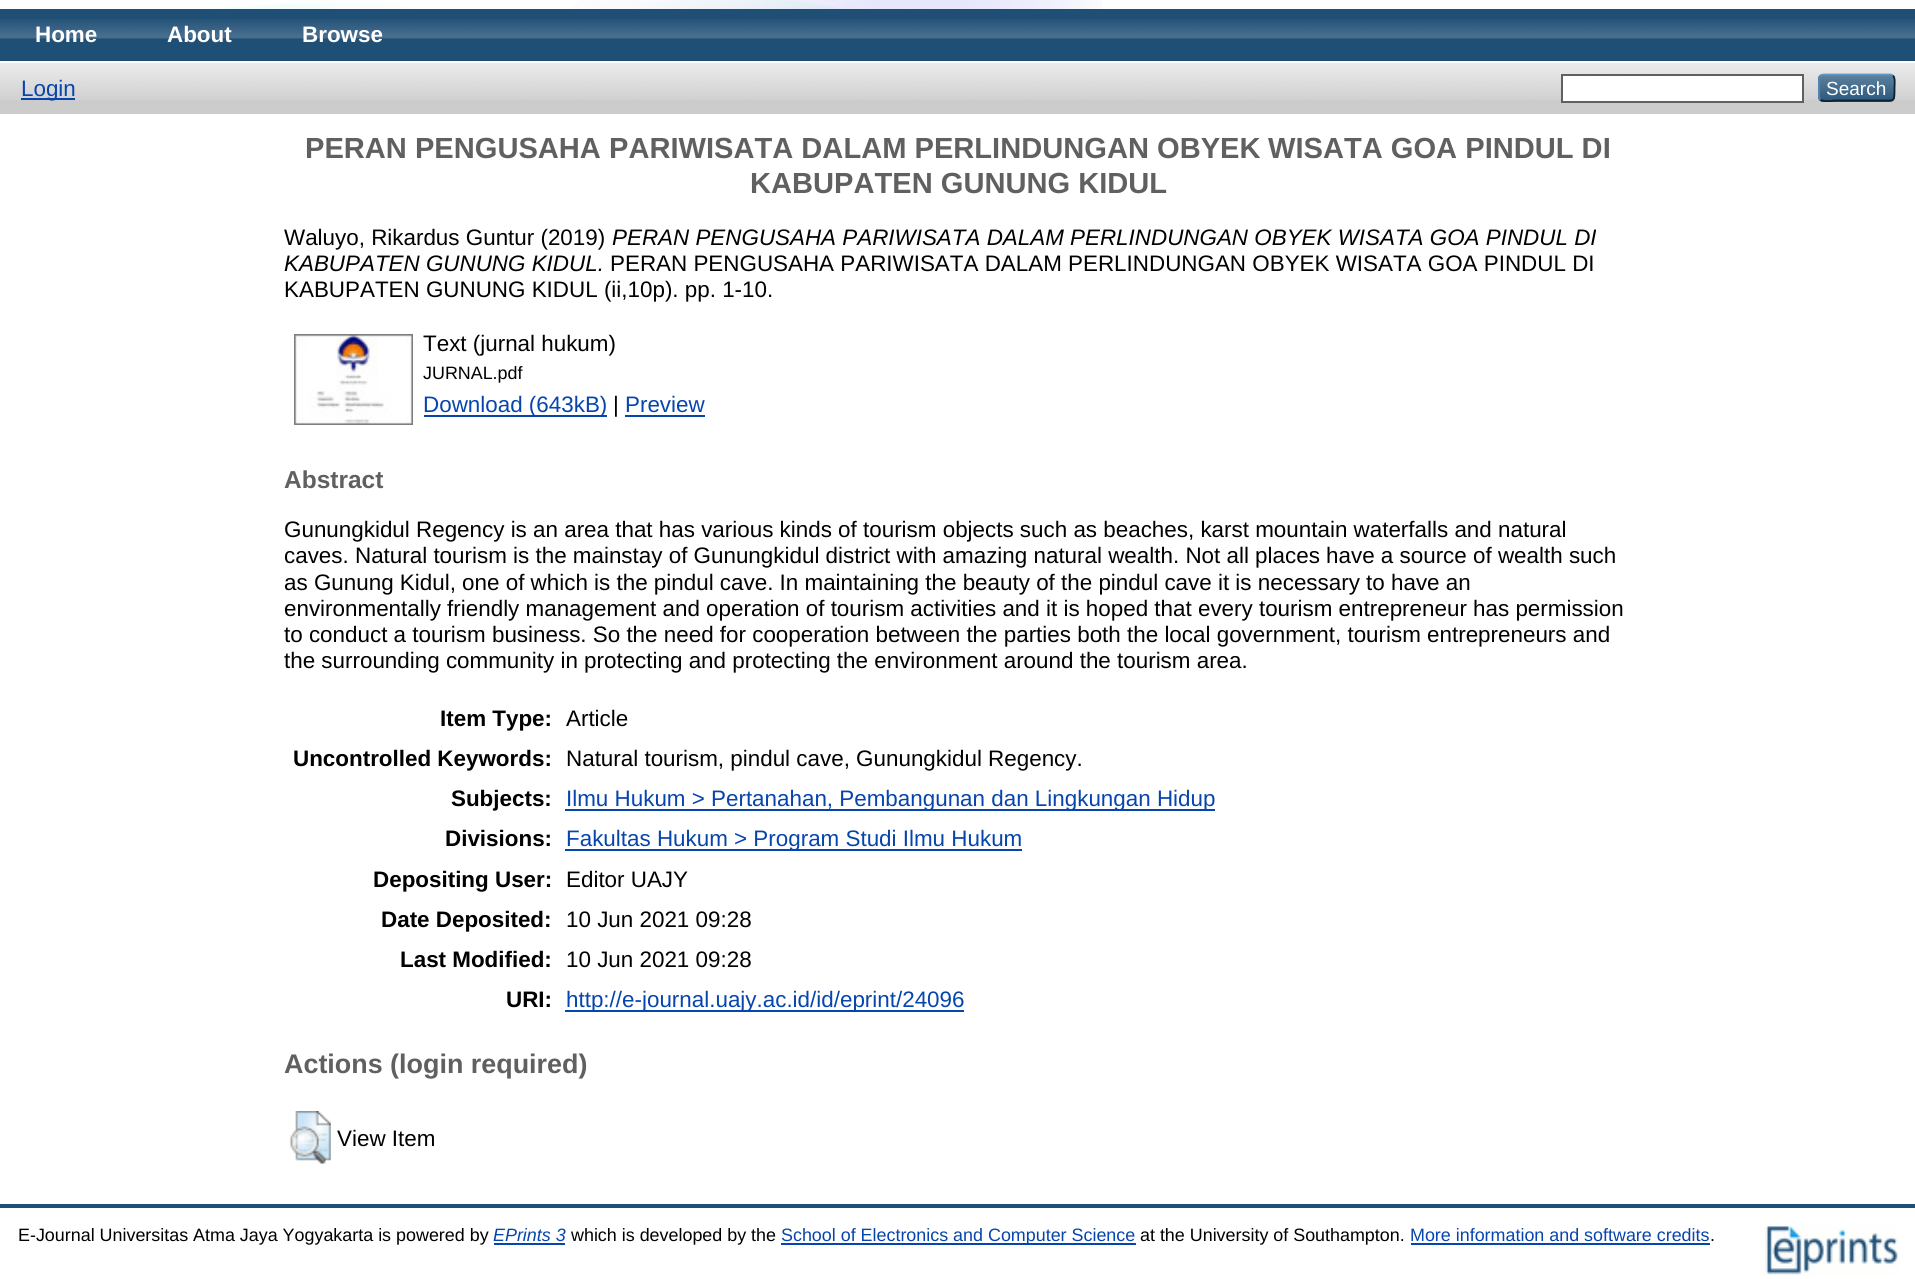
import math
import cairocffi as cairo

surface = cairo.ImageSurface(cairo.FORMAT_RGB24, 1915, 1279)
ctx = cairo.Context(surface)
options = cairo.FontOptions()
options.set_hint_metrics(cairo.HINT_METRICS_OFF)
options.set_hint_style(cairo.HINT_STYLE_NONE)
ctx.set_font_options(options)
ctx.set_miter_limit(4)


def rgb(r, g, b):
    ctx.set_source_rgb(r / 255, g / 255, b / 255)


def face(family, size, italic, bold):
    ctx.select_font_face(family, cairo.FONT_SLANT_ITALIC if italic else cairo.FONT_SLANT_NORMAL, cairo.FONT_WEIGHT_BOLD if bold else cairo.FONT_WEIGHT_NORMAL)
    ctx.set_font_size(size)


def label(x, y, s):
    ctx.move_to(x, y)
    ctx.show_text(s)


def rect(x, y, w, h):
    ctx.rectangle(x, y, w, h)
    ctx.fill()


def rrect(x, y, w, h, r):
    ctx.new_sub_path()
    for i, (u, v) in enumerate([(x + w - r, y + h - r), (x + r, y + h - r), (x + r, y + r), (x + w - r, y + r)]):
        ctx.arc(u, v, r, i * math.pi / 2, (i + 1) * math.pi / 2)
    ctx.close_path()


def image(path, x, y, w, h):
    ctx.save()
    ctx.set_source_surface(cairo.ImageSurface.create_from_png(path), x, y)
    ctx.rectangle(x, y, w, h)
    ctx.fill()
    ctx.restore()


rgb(255, 255, 255)
ctx.paint()
image('image0.png', 209, 0, 893, 9)
rgb(32, 79, 118)
rect(0, 9, 1915, 52)
image('image1.png', 0, 19, 1915, 20)
face('Liberation Sans', 22.4, 0, 1)
rgb(255, 255, 255)
label(35, 42, 'Home')
label(167, 42, 'About')
label(302, 42, 'Browse')
rgb(204, 204, 204)
rect(0, 63, 1915, 51)
image('image2.png', 0, 63, 1915, 37)
rgb(6, 69, 173)
rect(21, 98, 54, 2)
face('Liberation Sans', 22.4, 0, 0)
label(21, 96, 'Login')
rgb(255, 255, 255)
ctx.rectangle(1562, 75, 241, 27)
ctx.fill_preserve()
rgb(96, 96, 96)
ctx.stroke()
rgb(31, 79, 118)
rrect(1818, 74, 77, 28, 5)
ctx.fill()
image('image3.png', 1818, 73, 77, 28)
ctx.new_path()
ctx.move_to(1820.5, 75.5)
ctx.line_to(1823, 74.5)
ctx.line_to(1890.5, 74.5)
ctx.line_to(1893, 75.5)
rgb(91, 151, 199)
ctx.set_line_width(1.8)
ctx.stroke()
ctx.new_path()
ctx.move_to(1893, 75.5)
ctx.curve_to(1895.5, 78, 1894.5, 84.5, 1894.5, 87.5)
ctx.curve_to(1894.5, 102.5, 1895, 100.5, 1879, 100.5)
ctx.line_to(1834.5, 100.5)
ctx.curve_to(1834, 100.5, 1823.5, 102.5, 1820.5, 99.5)
rgb(13, 33, 49)
ctx.stroke()
ctx.new_path()
ctx.move_to(1820.5, 99.5)
ctx.curve_to(1819.5, 98.5, 1819, 97.5, 1819, 96)
ctx.line_to(1819, 79)
ctx.curve_to(1819, 77.5, 1819.5, 76.5, 1820.5, 75.5)
rgb(82, 135, 179)
ctx.stroke()
face('Liberation Sans', 19, 0, 0)
rgb(255, 255, 255)
label(1826, 95, 'Search')
face('Liberation Sans', 29.1, 0, 1)
rgb(96, 96, 96)
label(305, 158, 'PERAN PENGUSAHA PARIWISATA DALAM PERLINDUNGAN OBYEK')
label(1268, 158, 'WISATA GOA PINDUL DI')
label(750, 193, 'KABUPATEN GUNUNG KIDUL')
face('Liberation Sans', 22.4, 0, 0)
rgb(0, 0, 0)
label(284, 245, 'Waluyo, Rikardus Guntur (2019)')
face('Liberation Sans', 22.4, 1, 0)
label(612, 245, 'PERAN PENGUSAHA PARIWISATA DALAM PERLINDUNGAN OBYEK WISATA GOA PINDUL DI')
label(284, 271, 'KABUPATEN GUNUNG KIDUL.')
face('Liberation Sans', 22.4, 0, 0)
label(610, 271, 'PERAN PENGUSAHA PARIWISATA DALAM PERLINDUNGAN OBYEK WISATA GOA PINDUL DI')
label(284, 297, 'KABUPATEN GUNUNG KIDUL (ii,10p). pp. 1-10.')
image('image4.png', 294, 334, 119, 91)
label(423, 351, 'Text (jurnal hukum)')
face('Liberation Sans', 17.9, 0, 0)
label(423, 379, 'JURNAL.pdf')
rgb(6, 69, 173)
rect(424, 415, 183, 2)
face('Liberation Sans', 22.4, 0, 0)
label(423, 412, 'Download (643kB)')
rgb(0, 0, 0)
label(613, 412, '|')
rgb(6, 69, 173)
label(625, 412, 'Preview')
rect(625, 415, 80, 2)
face('Liberation Sans', 24.5, 0, 1)
rgb(96, 96, 96)
label(284, 488, 'Abstract')
face('Liberation Sans', 22.4, 0, 0)
rgb(0, 0, 0)
label(284, 537, 'Gunungkidul Regency is an area that has various kinds of tourism objects such as beaches, karst mountain waterfalls and natural')
label(284, 563, 'caves. Natural tourism is the mainstay of Gunungkidul district with amazing natural wealth. Not all places have a source of wealth such')
label(284, 590, 'as Gunung Kidul, one of which is the pindul cave. In maintaining the beauty of the pindul cave it is necessary to have an')
label(284, 616, 'environmentally friendly management and operation of tourism activities and it is hoped that every tourism entrepreneur has permission')
label(284, 642, 'to conduct a tourism business. So the need for cooperation between the parties both the local government, tourism entrepreneurs and')
label(284, 668, 'the surrounding community in protecting and protecting the environment around the tourism area.')
face('Liberation Sans', 22.4, 0, 1)
label(440, 726, 'Item Type:')
face('Liberation Sans', 22.4, 0, 0)
label(566, 726, 'Article')
face('Liberation Sans', 22.4, 0, 1)
label(293, 766, 'Uncontrolled Keywords:')
face('Liberation Sans', 22.4, 0, 0)
label(566, 766, 'Natural tourism, pindul cave, Gunungkidul Regency.')
face('Liberation Sans', 22.4, 0, 1)
label(451, 806, 'Subjects:')
rgb(6, 69, 173)
rect(565, 809, 650, 2)
face('Liberation Sans', 22.4, 0, 0)
label(566, 806, 'Ilmu Hukum > Pertanahan, Pembangunan dan Lingkungan Hidup')
face('Liberation Sans', 22.4, 0, 1)
rgb(0, 0, 0)
label(445, 846, 'Divisions:')
rgb(6, 69, 173)
rect(565, 849, 457, 2)
face('Liberation Sans', 22.4, 0, 0)
label(566, 846, 'Fakultas Hukum > Program Studi Ilmu Hukum')
face('Liberation Sans', 22.4, 0, 1)
rgb(0, 0, 0)
label(373, 887, 'Depositing User:')
face('Liberation Sans', 22.4, 0, 0)
label(566, 887, 'Editor UAJY')
face('Liberation Sans', 22.4, 0, 1)
label(381, 927, 'Date Deposited:')
face('Liberation Sans', 22.4, 0, 0)
label(566, 927, '10 Jun 2021 09:28')
face('Liberation Sans', 22.4, 0, 1)
label(400, 967, 'Last Modified:')
face('Liberation Sans', 22.4, 0, 0)
label(566, 967, '10 Jun 2021 09:28')
face('Liberation Sans', 22.4, 0, 1)
label(506, 1007, 'URI:')
rgb(6, 69, 173)
rect(565, 1010, 399, 2)
face('Liberation Sans', 22.4, 0, 0)
label(566, 1007, 'http://e-journal.uajy.ac.id/id/eprint/24096')
face('Liberation Sans', 26.9, 0, 1)
rgb(96, 96, 96)
label(284, 1073, 'Actions (login required)')
image('image5.png', 290, 1111, 41, 53)
face('Liberation Sans', 22.4, 0, 0)
rgb(0, 0, 0)
label(337, 1146, 'View Item')
rgb(32, 79, 118)
rect(0, 1204, 1915, 4)
face('Liberation Sans', 17.9, 0, 0)
rgb(0, 0, 0)
label(18, 1241, 'E-Journal Universitas Atma Jaya Yogyakarta is powered by')
face('Liberation Sans', 17.9, 1, 0)
rgb(6, 69, 173)
label(493, 1241, 'EPrints 3')
rect(494, 1243, 71, 2)
face('Liberation Sans', 17.9, 0, 0)
rgb(0, 0, 0)
label(571, 1241, 'which is developed by the')
rgb(6, 69, 173)
rect(781, 1243, 355, 2)
label(781, 1241, 'School of Electronics and Computer Science')
rgb(0, 0, 0)
label(1140, 1241, 'at the University of Southampton.')
rgb(6, 69, 173)
label(1410, 1241, 'More information and software credits')
rect(1411, 1243, 299, 2)
rgb(0, 0, 0)
label(1710, 1241, '.')
image('image6.png', 1764, 1226, 134, 50)
surface.write_to_png('render.png')
